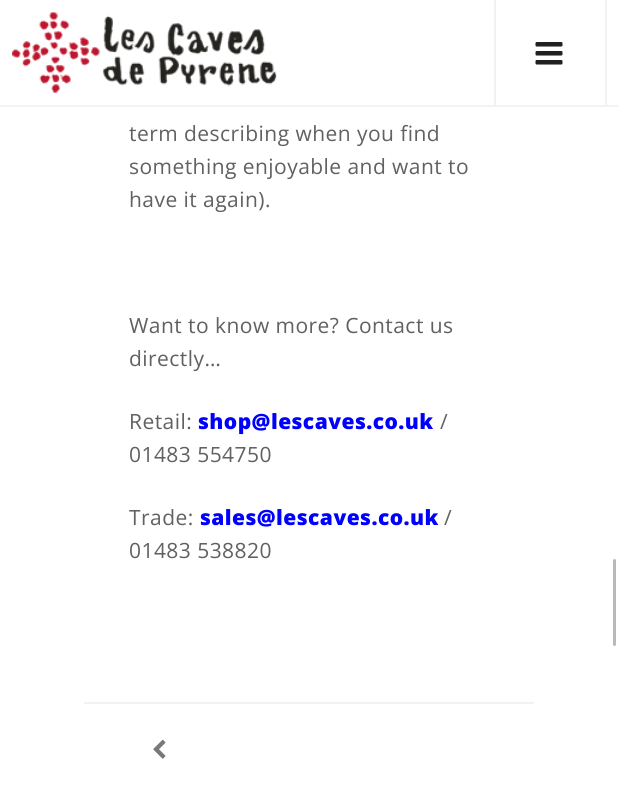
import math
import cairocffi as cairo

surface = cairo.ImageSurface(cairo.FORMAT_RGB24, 618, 793)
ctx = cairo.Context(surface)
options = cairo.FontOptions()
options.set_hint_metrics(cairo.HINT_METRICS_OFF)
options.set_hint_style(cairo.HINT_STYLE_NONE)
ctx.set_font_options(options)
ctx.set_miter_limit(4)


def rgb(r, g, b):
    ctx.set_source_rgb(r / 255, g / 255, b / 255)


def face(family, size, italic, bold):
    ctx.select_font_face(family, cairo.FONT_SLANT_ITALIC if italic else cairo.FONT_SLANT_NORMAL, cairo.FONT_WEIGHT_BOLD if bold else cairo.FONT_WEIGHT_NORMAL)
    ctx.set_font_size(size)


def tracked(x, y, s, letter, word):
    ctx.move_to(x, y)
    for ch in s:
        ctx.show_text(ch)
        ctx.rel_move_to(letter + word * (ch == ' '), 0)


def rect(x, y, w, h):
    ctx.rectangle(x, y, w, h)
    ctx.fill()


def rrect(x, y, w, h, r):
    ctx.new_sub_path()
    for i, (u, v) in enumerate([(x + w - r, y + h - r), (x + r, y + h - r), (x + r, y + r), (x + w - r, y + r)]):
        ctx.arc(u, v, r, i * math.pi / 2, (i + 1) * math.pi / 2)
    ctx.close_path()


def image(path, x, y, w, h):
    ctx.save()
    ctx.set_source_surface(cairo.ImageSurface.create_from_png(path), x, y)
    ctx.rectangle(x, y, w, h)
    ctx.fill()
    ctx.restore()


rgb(255, 255, 255)
ctx.paint()
ctx.set_source_rgba(0, 0, 0, 0.05)
rect(0, 105, 618, 2)
image('image0.png', 12, 12, 265, 81)
rgb(242, 242, 242)
rect(605, 0, 2, 105)
rect(494, 0, 2, 105)
image('image1.png', 535, 42, 28, 23)
face('Open Sans', 21, 0, 0)
rgb(97, 97, 97)
tracked(129, 141, 'term describing when you find', 0.45, 0)
tracked(129, 174, 'something enjoyable and want to', 0.45, 0)
tracked(129, 207, 'have it again).', 0.45, 0)
tracked(129, 333, 'Want to know more? Contact us', 0.45, 0)
tracked(129, 366, 'directly…', 0.45, 0)
tracked(129, 429, 'Retail:', 0.45, 0)
face('Open Sans ExtraBold', 21, 0, 0)
rgb(0, 0, 255)
tracked(198, 429, 'shop@lescaves.co.uk', 0.45, 0)
face('Open Sans', 21, 0, 0)
rgb(97, 97, 97)
tracked(440, 429, '/', 0.45, 0)
tracked(129, 462, '01483 554750', 0.45, 0)
tracked(129, 525, 'Trade:', 0.45, 0)
face('Open Sans ExtraBold', 21, 0, 0)
rgb(0, 0, 255)
tracked(200, 525, 'sales@lescaves.co.uk', 0.45, 0)
face('Open Sans', 21, 0, 0)
rgb(97, 97, 97)
tracked(444, 525, '/', 0.45, 0)
tracked(129, 558, '01483 538820', 0.45, 0)
rgb(242, 242, 242)
rect(84, 702, 450, 2)
image('image2.png', 153, 739, 13, 20)
rgb(185, 185, 185)
rect(613, 558, 3, 89)
rrect(612, 558, 5, 89, 2.5)
rgb(255, 255, 255)
ctx.stroke()
surface.write_to_png('render.png')
